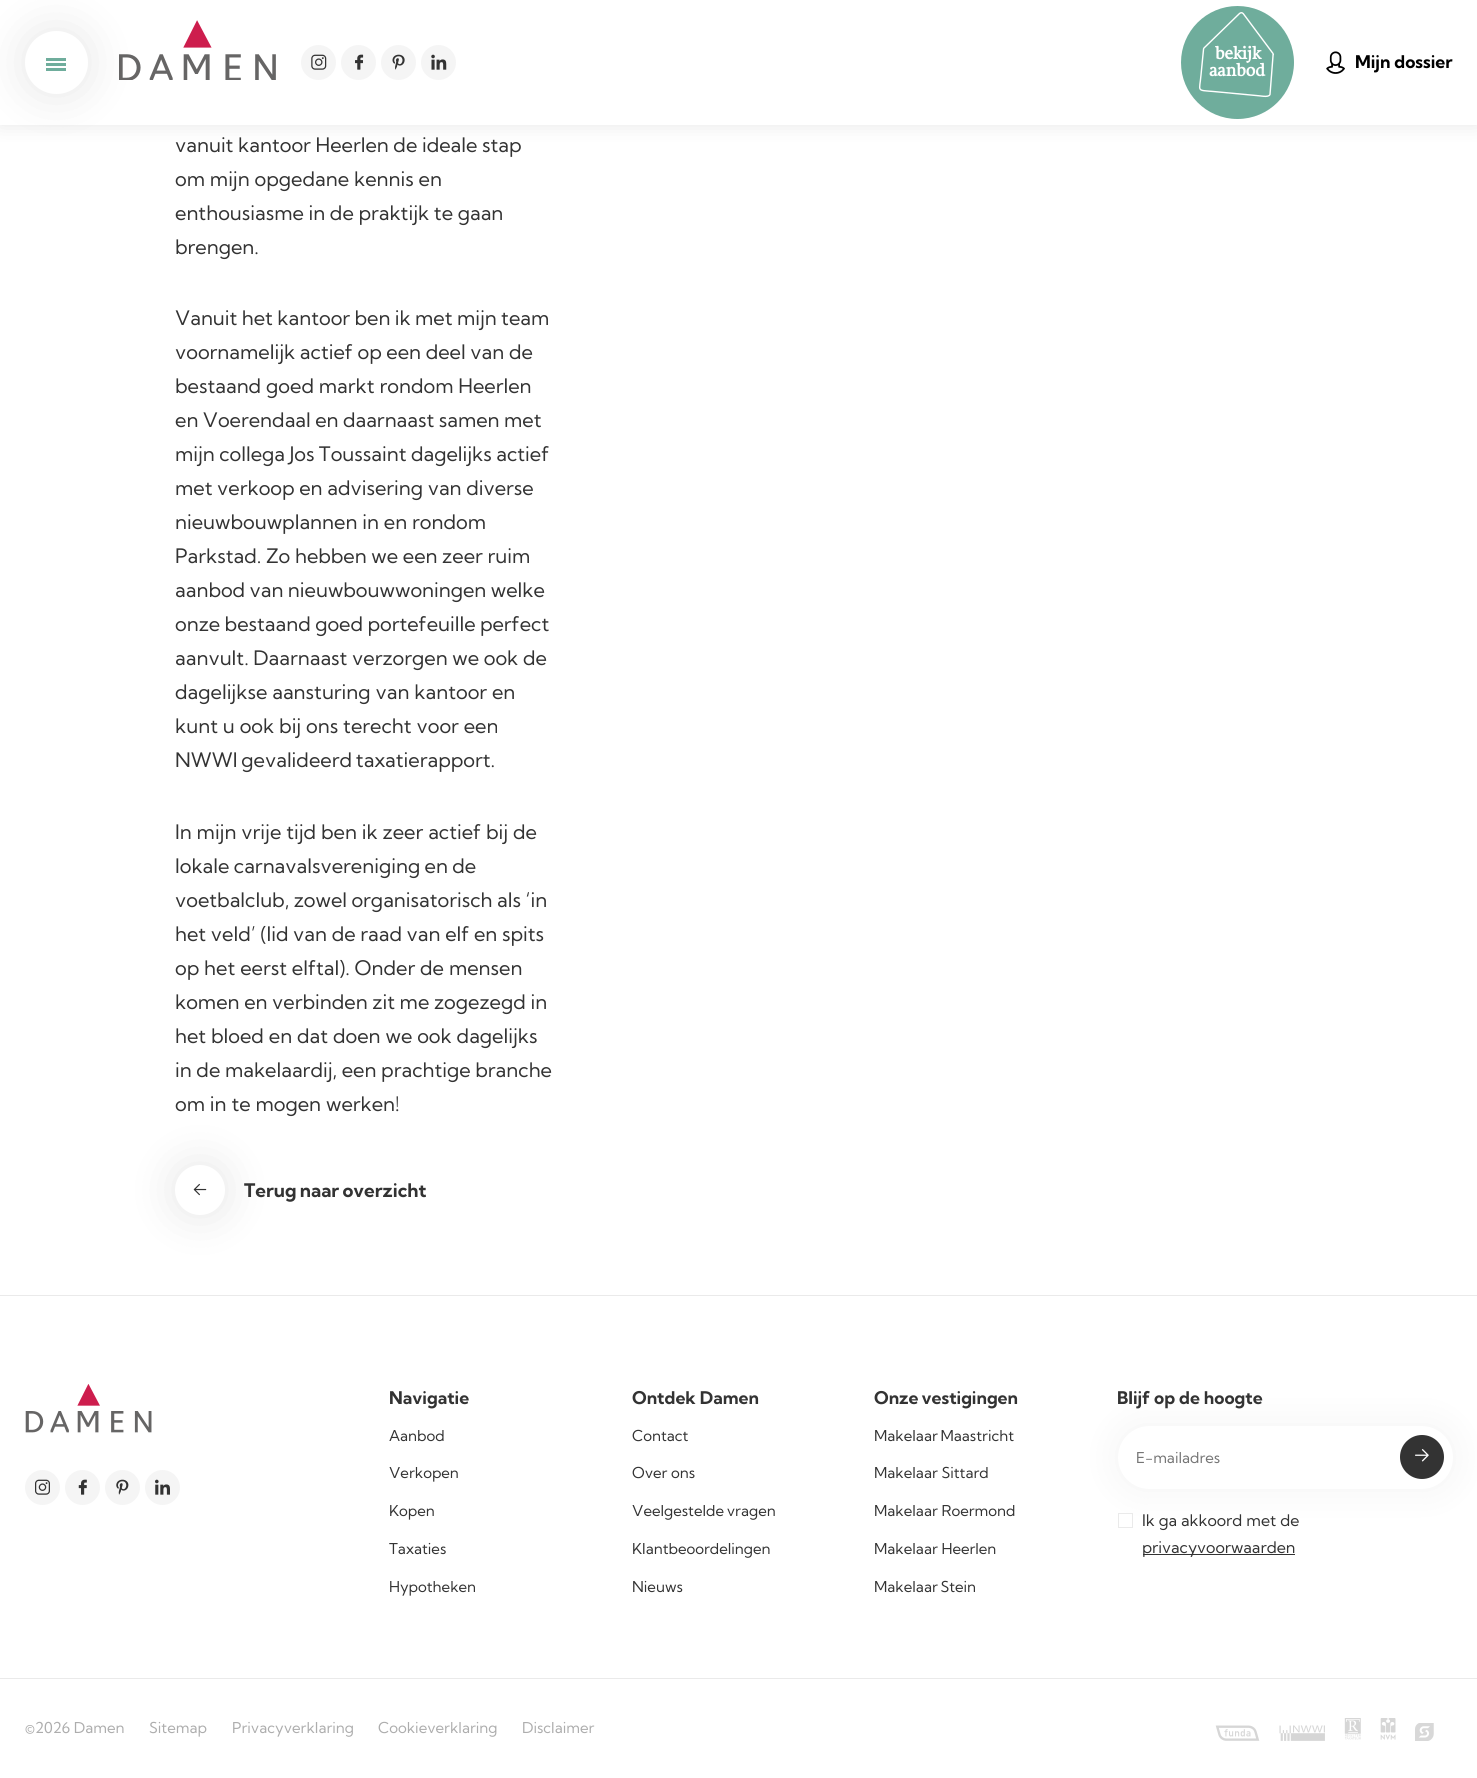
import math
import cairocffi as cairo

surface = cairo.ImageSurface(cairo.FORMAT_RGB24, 1477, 1778)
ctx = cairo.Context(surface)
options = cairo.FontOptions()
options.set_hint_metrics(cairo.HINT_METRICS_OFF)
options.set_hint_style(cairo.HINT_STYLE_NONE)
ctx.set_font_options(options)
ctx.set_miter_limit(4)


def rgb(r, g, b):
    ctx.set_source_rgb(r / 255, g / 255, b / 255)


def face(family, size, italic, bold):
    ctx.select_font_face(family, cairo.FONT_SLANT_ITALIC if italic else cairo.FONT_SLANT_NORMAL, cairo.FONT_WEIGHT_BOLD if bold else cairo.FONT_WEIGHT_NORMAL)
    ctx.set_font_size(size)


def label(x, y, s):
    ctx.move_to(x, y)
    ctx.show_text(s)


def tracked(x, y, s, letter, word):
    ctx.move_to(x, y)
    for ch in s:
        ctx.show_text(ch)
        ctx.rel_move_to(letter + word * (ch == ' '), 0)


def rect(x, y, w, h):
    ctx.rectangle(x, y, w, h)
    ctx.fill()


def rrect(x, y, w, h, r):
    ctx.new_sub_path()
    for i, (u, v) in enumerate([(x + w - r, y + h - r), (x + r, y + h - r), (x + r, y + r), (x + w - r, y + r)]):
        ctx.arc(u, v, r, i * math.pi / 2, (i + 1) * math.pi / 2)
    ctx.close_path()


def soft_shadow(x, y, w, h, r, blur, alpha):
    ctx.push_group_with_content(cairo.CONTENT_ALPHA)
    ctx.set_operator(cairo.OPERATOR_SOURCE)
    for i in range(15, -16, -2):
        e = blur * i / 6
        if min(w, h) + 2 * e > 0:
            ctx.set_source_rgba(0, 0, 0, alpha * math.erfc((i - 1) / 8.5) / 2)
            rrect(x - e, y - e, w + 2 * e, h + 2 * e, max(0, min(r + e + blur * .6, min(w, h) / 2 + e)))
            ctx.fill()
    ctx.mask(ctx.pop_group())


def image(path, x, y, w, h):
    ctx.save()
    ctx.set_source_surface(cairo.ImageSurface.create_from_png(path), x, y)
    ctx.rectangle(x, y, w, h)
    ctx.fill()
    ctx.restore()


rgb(255, 255, 255)
ctx.paint()
rgb(0, 0, 0)
soft_shadow(0, 0, 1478, 125, 0, 9.5, 0.1)
rgb(255, 255, 255)
rect(0, 0, 1477, 125)
image('image0.png', 119, 20, 157, 60)
rgb(0, 0, 0)
soft_shadow(25, 31, 63, 63, 31.5, 22.5, 0.1)
rgb(255, 255, 255)
ctx.arc(56.5, 62.5, 31.5, 0, 2 * math.pi)
ctx.fill()
rgb(111, 173, 156)
rect(46, 63, 20, 3)
rect(46, 58, 20, 3)
rect(46, 68, 20, 3)
rgb(245, 245, 245)
ctx.arc(318.5, 62.5, 17.5, 0, 2 * math.pi)
ctx.fill()
image('image1.png', 311, 54, 16, 16)
ctx.arc(358.5, 62.5, 17.5, 0, 2 * math.pi)
ctx.fill()
image('image2.png', 355, 54, 9, 16)
ctx.arc(398.5, 62.5, 17.5, 0, 2 * math.pi)
ctx.fill()
image('image3.png', 392, 54, 13, 16)
ctx.arc(438.5, 62.5, 17.5, 0, 2 * math.pi)
ctx.fill()
image('image4.png', 431, 54, 16, 16)
rgb(111, 173, 156)
ctx.arc(1237.5, 62.5, 56.5, 0, 2 * math.pi)
ctx.fill()
ctx.new_path()
ctx.move_to(1273, 56)
ctx.line_to(1273, 55)
ctx.curve_to(1273.5, 55, 1273.5, 54.5, 1273, 53.5)
ctx.line_to(1243.5, 14)
ctx.curve_to(1243.5, 14, 1242, 11.5, 1239.5, 13.5)
ctx.line_to(1204, 48)
ctx.curve_to(1204, 48, 1203.5, 48.5, 1203.5, 49.5)
ctx.line_to(1201, 75)
ctx.curve_to(1199.5, 92, 1196, 90, 1213.5, 91.5)
ctx.line_to(1256, 95.5)
ctx.curve_to(1259.5, 95.5, 1268.5, 98, 1270, 94.5)
ctx.close_path()
rgb(255, 255, 255)
ctx.set_line_width(1.4)
ctx.stroke()
face('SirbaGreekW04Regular', 17.5, 0, 1)
label(1215, 59, 'bekijk')
label(1209, 76, 'aanbod')
image('image5.png', 1326, 51, 19, 23)
face('Kumbh Sans', 17.5, 0, 1)
rgb(0, 0, 0)
label(1355, 68, 'Mijn dossier')
face('Kumbh Sans', 20, 0, 0)
rgb(51, 51, 51)
tracked(175, 152, 'vanuit kantoor Heerlen de ideale stap', 0, -0.25)
label(175, 186, 'om mijn opgedane kennis en')
tracked(175, 220, 'enthousiasme in de praktijk te gaan', 0, -0.25)
label(175, 254, 'brengen.')
tracked(175, 325, 'Vanuit het kantoor ben ik met mijn team', 0, -0.5)
tracked(175, 359, 'voornamelijk actief op een deel van de', 0, -0.25)
label(175, 393, 'bestaand goed markt rondom Heerlen')
tracked(175, 427, 'en Voerendaal en daarnaast samen met', 0, -0.5)
tracked(175, 461, 'mijn collega Jos Toussaint dagelijks actief', 0, -0.5)
tracked(175, 495, 'met verkoop en advisering van diverse', 0, -0.25)
label(175, 529, 'nieuwbouwplannen in en rondom')
tracked(175, 563, 'Parkstad. Zo hebben we een zeer ruim', 0, -0.25)
tracked(175, 597, 'aanbod van nieuwbouwwoningen welke', 0, -0.5)
tracked(175, 631, 'onze bestaand goed portefeuille perfect', 0, -0.5)
tracked(175, 665, 'aanvult. Daarnaast verzorgen we ook de', 0, -0.25)
label(175, 699, 'dagelijkse aansturing van kantoor en')
label(175, 733, 'kunt u ook bij ons terecht voor een')
tracked(175, 767, 'NWWI gevalideerd taxatierapport.', 0, -1)
label(175, 839, 'In mijn vrije tijd ben ik zeer actief bij de')
tracked(175, 873, 'lokale carnavalsvereniging en de', 0, -0.5)
tracked(175, 907, 'voetbalclub, zowel organisatorisch als ‘in', 0, -0.5)
tracked(175, 941, 'het veld’ (lid van de raad van elf en spits', 0, -0.25)
label(175, 975, 'op het eerst elftal). Onder de mensen')
tracked(175, 1009, 'komen en verbinden zit me zogezegd in', 0, -0.25)
label(175, 1043, 'het bloed en dat doen we ook dagelijks')
tracked(175, 1077, 'in de makelaardij, een prachtige branche', 0, -0.25)
label(175, 1111, 'om in te mogen werken!')
rgb(0, 0, 0)
soft_shadow(175, 1165, 50, 50, 25, 22, 0.1)
rgb(255, 255, 255)
ctx.arc(200, 1190, 25, 0, 2 * math.pi)
ctx.fill()
image('image6.png', 193, 1183, 14, 13)
face('Kumbh Sans', 18.75, 0, 1)
rgb(51, 51, 51)
tracked(244, 1197, 'Terug naar overzicht', 0, -1)
rgb(234, 234, 234)
rect(0, 1295, 1477, 1)
image('image7.png', 25, 1384, 127, 49)
rgb(245, 245, 245)
ctx.arc(42.5, 1487.5, 17.5, 0, 2 * math.pi)
ctx.fill()
image('image8.png', 35, 1479, 15, 16)
ctx.arc(82.5, 1487.5, 17.5, 0, 2 * math.pi)
ctx.fill()
image('image9.png', 78, 1479, 9, 16)
ctx.arc(122.5, 1487.5, 17.5, 0, 2 * math.pi)
ctx.fill()
image('image10.png', 116, 1479, 13, 16)
ctx.arc(162.5, 1487.5, 17.5, 0, 2 * math.pi)
ctx.fill()
image('image11.png', 155, 1479, 15, 16)
face('Kumbh Sans', 17.5, 0, 1)
rgb(51, 51, 51)
label(389, 1404, 'Navigatie')
face('Kumbh Sans', 15, 0, 0)
label(389, 1441, 'Aanbod')
label(389, 1478, 'Verkopen')
label(389, 1516, 'Kopen')
label(389, 1554, 'Taxaties')
label(389, 1592, 'Hypotheken')
face('Kumbh Sans', 17.5, 0, 1)
label(632, 1404, 'Ontdek Damen')
face('Kumbh Sans', 15, 0, 0)
label(632, 1441, 'Contact')
label(632, 1478, 'Over ons')
tracked(632, 1516, 'Veelgestelde vragen', 0, -1)
label(632, 1554, 'Klantbeoordelingen')
label(632, 1592, 'Nieuws')
face('Kumbh Sans', 17.5, 0, 1)
tracked(874, 1404, 'Onze vestigingen', 0, -1)
face('Kumbh Sans', 15, 0, 0)
tracked(874, 1441, 'Makelaar Maastricht', 0, -1)
label(874, 1478, 'Makelaar Sittard')
label(874, 1516, 'Makelaar Roermond')
label(874, 1554, 'Makelaar Heerlen')
tracked(874, 1592, 'Makelaar Stein', 0, -1)
face('Kumbh Sans', 17.5, 0, 1)
label(1117, 1404, 'Blijf op de hoogte')
rgb(0, 0, 0)
soft_shadow(1118, 1426, 335, 63, 31.5, 19, 0.05)
rgb(255, 255, 255)
rrect(1118, 1426, 335, 63, 31.5)
ctx.fill()
face('Kumbh Sans', 15, 0, 0)
rgb(117, 117, 117)
label(1136, 1463, 'E-mailadres')
rgb(51, 51, 51)
ctx.new_path()
ctx.arc(1422, 1457, 22, 0, 2 * math.pi)
ctx.fill()
image('image12.png', 1415, 1449, 14, 13)
ctx.rectangle(1118.5, 1513.5, 14, 14)
rgb(234, 234, 234)
ctx.set_line_width(1)
ctx.stroke()
face('Kumbh Sans', 16, 0, 0)
rgb(51, 51, 51)
label(1142, 1526, 'Ik ga akkoord met de')
rect(1143, 1554, 152, 1)
label(1142, 1553, 'privacyvoorwaarden')
rgb(234, 234, 234)
rect(0, 1678, 1477, 1)
face('Kumbh Sans', 15, 0, 0)
rgb(173, 173, 173)
label(25, 1733, '©2026 Damen')
label(149, 1733, 'Sitemap')
label(232, 1733, 'Privacyverklaring')
label(378, 1733, 'Cookieverklaring')
label(522, 1733, 'Disclaimer')
image('image13.png', 1215, 1725, 45, 16)
image('image14.png', 1279, 1725, 46, 16)
image('image15.png', 1344, 1718, 17, 22)
image('image16.png', 1380, 1718, 16, 22)
image('image17.png', 1415, 1723, 19, 18)
surface.write_to_png('render.png')
